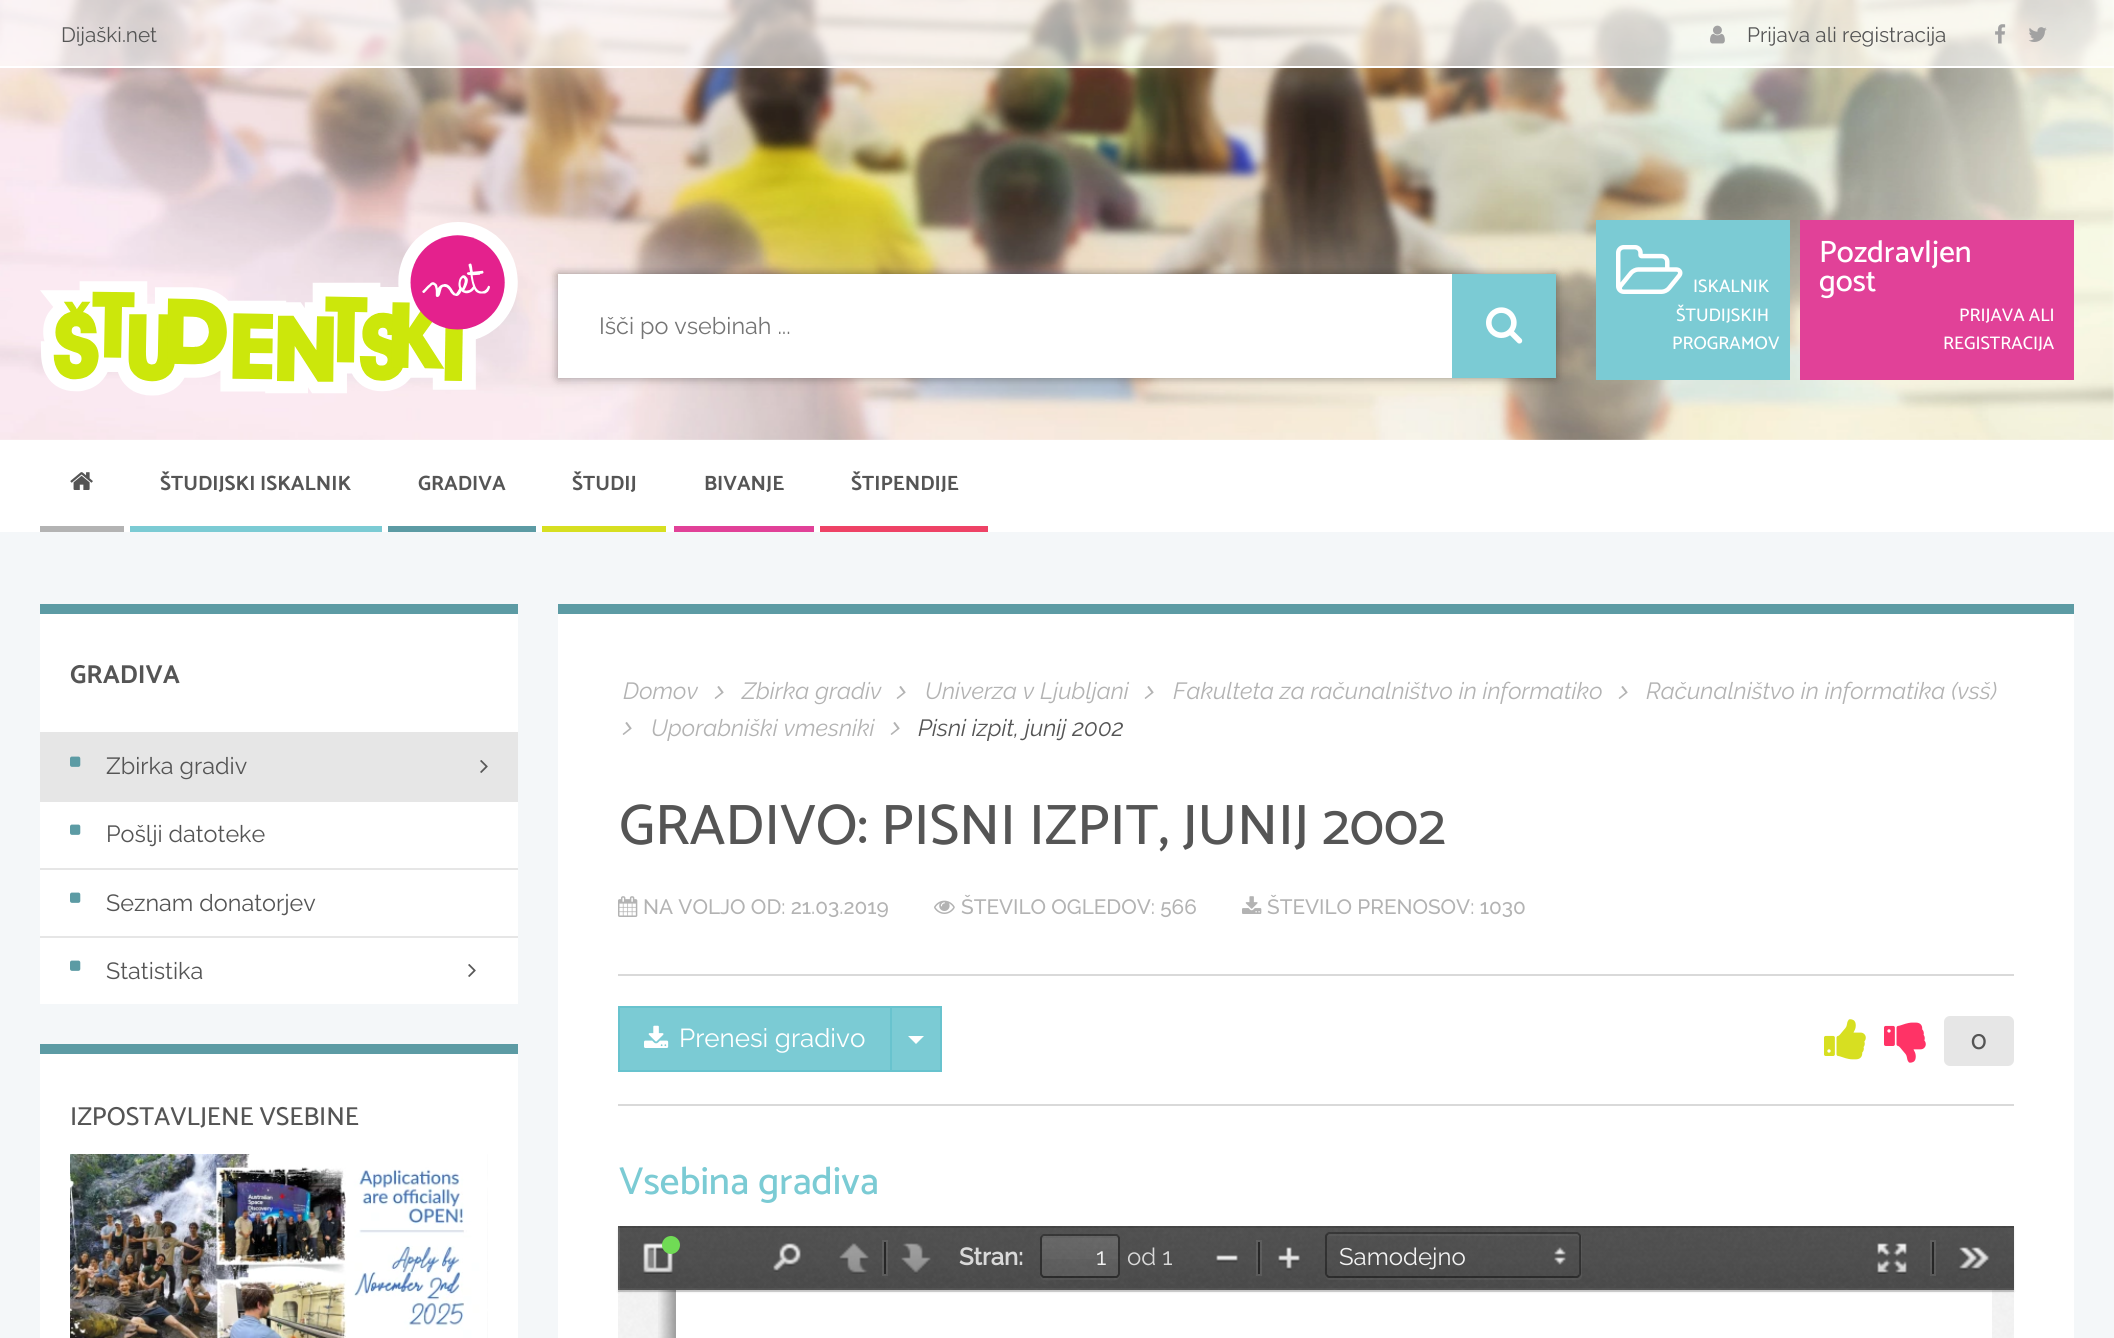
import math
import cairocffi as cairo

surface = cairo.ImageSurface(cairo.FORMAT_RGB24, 2114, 1338)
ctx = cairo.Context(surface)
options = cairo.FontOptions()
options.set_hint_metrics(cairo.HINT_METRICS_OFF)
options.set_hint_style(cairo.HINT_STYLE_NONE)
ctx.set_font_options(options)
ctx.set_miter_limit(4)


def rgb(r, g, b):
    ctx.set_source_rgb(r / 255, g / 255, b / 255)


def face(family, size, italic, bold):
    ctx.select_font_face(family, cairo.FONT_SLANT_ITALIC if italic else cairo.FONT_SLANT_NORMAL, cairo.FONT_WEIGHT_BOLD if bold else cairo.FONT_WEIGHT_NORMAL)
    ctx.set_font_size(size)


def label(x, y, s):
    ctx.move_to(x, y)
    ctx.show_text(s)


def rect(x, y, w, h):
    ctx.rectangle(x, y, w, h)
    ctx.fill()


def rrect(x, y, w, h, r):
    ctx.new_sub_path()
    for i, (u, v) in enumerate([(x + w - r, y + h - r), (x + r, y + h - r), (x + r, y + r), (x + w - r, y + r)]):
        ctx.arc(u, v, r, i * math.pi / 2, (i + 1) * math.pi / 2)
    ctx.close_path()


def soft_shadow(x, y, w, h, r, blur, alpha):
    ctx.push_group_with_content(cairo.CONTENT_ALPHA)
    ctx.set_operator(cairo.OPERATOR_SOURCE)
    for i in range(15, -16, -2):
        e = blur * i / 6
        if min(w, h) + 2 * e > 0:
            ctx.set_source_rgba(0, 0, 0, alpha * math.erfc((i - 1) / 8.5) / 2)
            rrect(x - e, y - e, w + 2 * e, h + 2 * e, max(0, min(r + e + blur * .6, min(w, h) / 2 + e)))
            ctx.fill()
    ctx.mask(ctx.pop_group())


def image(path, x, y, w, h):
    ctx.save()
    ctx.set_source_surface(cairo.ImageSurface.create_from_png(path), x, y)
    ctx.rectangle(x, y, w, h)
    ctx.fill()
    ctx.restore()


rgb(255, 255, 255)
ctx.paint()
image('image0.png', 0, 0, 2114, 440)
ctx.set_source_rgba(1, 1, 1, 0.6)
rect(0, 0, 2114, 66)
rgb(255, 255, 255)
rect(0, 66, 2114, 2)
face('Raleway', 20.75, 0, 0)
rgb(85, 85, 85)
label(61, 42, 'Dijaški.net')
image('image1.png', 1710, 25, 15, 19)
label(1747, 42, 'Prijava ali registracija')
image('image2.png', 1995, 24, 11, 20)
image('image3.png', 2028, 27, 19, 15)
image('image4.png', 40, 222, 478, 174)
rgb(0, 0, 0)
soft_shadow(558, 274, 998, 104, 0, 5, 0.4)
rgb(255, 255, 255)
rect(558, 274, 894, 104)
face('Raleway', 23.4, 0, 0)
rgb(117, 117, 117)
label(599, 334, 'Išči po vsebinah ...')
rgb(123, 203, 212)
rect(1452, 274, 104, 104)
image('image5.png', 1486, 307, 37, 37)
rect(1596, 220, 194, 160)
image('image6.png', 1616, 245, 67, 49)
face('Catamaran Medium', 18.25, 0, 0)
rgb(255, 255, 255)
label(1693, 292, 'ISKALNIK')
label(1676, 321, 'ŠTUDIJSKIH')
label(1672, 349, 'PROGRAMOV')
rgb(225, 65, 152)
rect(1800, 220, 274, 160)
face('Catamaran Medium', 31, 0, 0)
rgb(255, 255, 255)
label(1819, 262, 'Pozdravljen')
label(1819, 291, 'gost')
face('Catamaran Medium', 18.25, 0, 0)
label(1959, 321, 'PRIJAVA ALI')
label(1943, 349, 'REGISTRACIJA')
rgb(179, 179, 179)
rect(40, 526, 84, 6)
image('image7.png', 70, 472, 23, 18)
rgb(123, 203, 212)
rect(130, 526, 252, 6)
face('Catamaran', 20.75, 0, 1)
rgb(85, 85, 85)
label(160, 490, 'ŠTUDIJSKI ISKALNIK')
rgb(92, 155, 164)
rect(388, 526, 148, 6)
rgb(85, 85, 85)
label(418, 490, 'GRADIVA')
rgb(215, 223, 33)
rect(542, 526, 124, 6)
rgb(85, 85, 85)
label(572, 490, 'ŠTUDIJ')
rgb(225, 65, 152)
rect(674, 526, 140, 6)
rgb(85, 85, 85)
label(704, 490, 'BIVANJE')
rgb(238, 66, 102)
rect(820, 526, 168, 6)
rgb(85, 85, 85)
label(851, 490, 'ŠTIPENDIJE')
rgb(244, 247, 249)
rect(0, 532, 2114, 806)
rgb(255, 255, 255)
rect(40, 614, 478, 390)
rgb(92, 155, 164)
rect(40, 604, 478, 10)
face('Catamaran', 26, 0, 1)
rgb(85, 85, 85)
label(70, 683, 'GRADIVA')
rgb(230, 230, 230)
rect(40, 732, 478, 70)
image('image8.png', 70, 756, 11, 11)
face('Raleway', 23.4, 0, 0)
rgb(85, 85, 85)
label(106, 774, 'Zbirka gradiv')
image('image9.png', 480, 760, 8, 13)
image('image10.png', 70, 824, 11, 11)
label(106, 842, 'Pošlji datoteke')
rgb(230, 230, 230)
rect(40, 868, 478, 2)
image('image10.png', 70, 892, 11, 11)
rgb(85, 85, 85)
label(106, 911, 'Seznam donatorjev')
rgb(230, 230, 230)
rect(40, 936, 478, 2)
image('image10.png', 70, 960, 11, 11)
rgb(85, 85, 85)
label(106, 979, 'Statistika')
image('image11.png', 468, 964, 8, 13)
rgb(255, 255, 255)
rect(40, 1054, 478, 284)
rgb(92, 155, 164)
rect(40, 1044, 478, 10)
face('Catamaran Medium', 26, 0, 0)
rgb(85, 85, 85)
label(70, 1125, 'IZPOSTAVLJENE VSEBINE')
image('image12.png', 70, 1154, 418, 184)
rgb(255, 255, 255)
rect(558, 614, 1516, 724)
rgb(92, 155, 164)
rect(558, 604, 1516, 10)
face('Raleway', 23.4, 1, 0)
rgb(179, 179, 179)
label(623, 699, 'Domov')
image('image13.png', 714, 686, 10, 13)
label(742, 699, 'Zbirka gradiv')
image('image13.png', 896, 686, 10, 13)
label(925, 699, 'Univerza v Ljubljani')
image('image13.png', 1144, 686, 10, 13)
label(1173, 699, 'Fakulteta za računalništvo in informatiko')
image('image13.png', 1618, 686, 10, 13)
label(1646, 699, 'Računalništvo in informatika (vsš)')
image('image13.png', 622, 722, 10, 13)
label(651, 736, 'Uporabniški vmesniki')
image('image13.png', 890, 722, 10, 13)
rgb(85, 85, 85)
label(918, 736, 'Pisni izpit, junij 2002')
face('Catamaran Medium', 57.25, 0, 0)
label(619, 844, 'GRADIVO: PISNI IZPIT, JUNIJ 2002')
rgb(217, 217, 217)
rect(618, 974, 1396, 2)
image('image14.png', 618, 896, 20, 21)
face('Raleway Medium', 20.75, 0, 0)
rgb(179, 179, 179)
label(643, 914, 'NA VOLJO OD: 21.03.2019')
image('image15.png', 934, 900, 21, 14)
label(961, 914, 'ŠTEVILO OGLEDOV: 566')
image('image16.png', 1242, 896, 20, 18)
label(1267, 914, 'ŠTEVILO PRENOSOV: 1030')
rgb(217, 217, 217)
rect(618, 1104, 1396, 2)
rgb(123, 203, 212)
ctx.rectangle(619, 1007, 272, 64)
ctx.fill_preserve()
rgb(104, 195, 206)
ctx.stroke()
image('image17.png', 644, 1025, 25, 23)
face('Raleway', 26, 0, 0)
rgb(255, 255, 255)
label(679, 1047, 'Prenesi gradivo')
rgb(123, 203, 212)
ctx.rectangle(891, 1007, 50, 64)
ctx.fill_preserve()
rgb(104, 195, 206)
ctx.stroke()
rgb(255, 255, 255)
ctx.new_path()
ctx.move_to(908, 1036)
ctx.line_to(924, 1036)
ctx.line_to(916, 1044)
ctx.close_path()
ctx.fill()
image('image18.png', 1824, 1019, 42, 41)
image('image19.png', 1884, 1022, 42, 41)
rgb(230, 230, 230)
rrect(1944, 1016, 70, 50, 6)
ctx.fill()
face('Catamaran Medium', 26, 0, 0)
rgb(85, 85, 85)
label(1971, 1049, '0')
face('Catamaran Medium', 39, 0, 0)
rgb(123, 203, 212)
label(619, 1194, 'Vsebina gradiva')
image('image20.png', 618, 1226, 1396, 112)
rgb(255, 255, 255)
rect(676, 1290, 1316, 48)
image('image31.png', 658, 1290, 18, 48)
ctx.save()
ctx.set_fill_rule(cairo.FILL_RULE_EVEN_ODD)
ctx.new_path()
ctx.move_to(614, 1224)
ctx.line_to(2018, 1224)
ctx.line_to(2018, 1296)
ctx.line_to(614, 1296)
ctx.close_path()
ctx.move_to(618, 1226)
ctx.line_to(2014, 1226)
ctx.line_to(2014, 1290)
ctx.line_to(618, 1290)
ctx.close_path()
ctx.clip()
rgb(0, 0, 0)
soft_shadow(618, 1228, 1396, 64, 0, 1, 0.1)
ctx.restore()
ctx.set_source_rgba(0, 0, 0, 0.15)
rect(618, 1290, 1396, 2)
image('image21.png', 618, 1226, 1396, 64)
ctx.set_source_rgba(1, 1, 1, 0.05)
rect(618, 1288, 1396, 2)
ctx.set_source_rgba(0, 0, 0, 0.15)
rect(618, 1226, 1396, 2)
ctx.set_source_rgba(1, 1, 1, 0.08)
rect(618, 1226, 2, 64)
image('image22.png', 643, 1243, 30, 31)
rgb(112, 219, 85)
ctx.arc(671, 1245, 9, 0, 2 * math.pi)
ctx.fill()
image('image23.png', 773, 1243, 28, 29)
image('image24.png', 839, 1243, 30, 31)
ctx.rectangle(883, 1241, 4, 34)
ctx.set_source_rgba(1, 1, 1, 0.08)
ctx.stroke()
ctx.set_source_rgba(0, 0, 0, 0.5)
rect(884, 1242, 2, 32)
image('image25.png', 901, 1243, 30, 31)
face('Raleway', 24, 0, 1)
rgb(217, 217, 217)
label(959, 1265, 'Stran:')
ctx.set_source_rgba(1, 1, 1, 0.05)
ctx.new_path()
ctx.move_to(1040, 1274)
ctx.curve_to(1040, 1283, 1048, 1280, 1056, 1280)
ctx.line_to(1104, 1280)
ctx.curve_to(1112, 1280, 1120, 1283, 1120, 1274)
ctx.curve_to(1120, 1276, 1118, 1278, 1116, 1278)
ctx.line_to(1044, 1278)
ctx.curve_to(1042, 1278, 1040, 1276, 1040, 1274)
ctx.close_path()
ctx.fill()
ctx.set_source_rgba(1, 1, 1, 0.09)
rrect(1042, 1236, 76, 40, 2)
ctx.fill()
gradient = cairo.LinearGradient(1080, 1236, 1080, 1276)
gradient.add_color_stop_rgba(0, 1, 1, 1, 0.05)
gradient.add_color_stop_rgba(1, 1, 1, 1, 0)
ctx.set_source(gradient)
rect(1042, 1236, 76, 23)
ctx.set_source_rgba(0, 0, 0, 0.05)
ctx.new_path()
ctx.move_to(1044, 1238)
ctx.line_to(1116, 1238)
ctx.curve_to(1117, 1238, 1118, 1239, 1118, 1240)
ctx.curve_to(1118, 1233, 1112, 1236, 1104, 1236)
ctx.line_to(1056, 1236)
ctx.curve_to(1048, 1236, 1042, 1233, 1042, 1240)
ctx.curve_to(1042, 1239, 1043, 1238, 1044, 1238)
ctx.close_path()
ctx.fill()
ctx.new_path()
ctx.move_to(1042, 1236)
ctx.line_to(1043.5, 1235)
ctx.line_to(1116.5, 1235)
ctx.line_to(1118, 1236)
ctx.set_source_rgba(0, 0, 0, 0.32)
ctx.stroke()
ctx.new_path()
ctx.move_to(1118, 1236)
ctx.line_to(1119, 1238)
ctx.line_to(1119, 1274)
ctx.line_to(1118, 1276)
ctx.set_source_rgba(0, 0, 0, 0.38)
ctx.stroke()
ctx.new_path()
ctx.move_to(1118, 1276)
ctx.line_to(1116.5, 1277)
ctx.line_to(1043.5, 1277)
ctx.line_to(1042, 1276)
ctx.set_source_rgba(0, 0, 0, 0.42)
ctx.stroke()
ctx.new_path()
ctx.move_to(1042, 1276)
ctx.line_to(1041, 1274)
ctx.line_to(1041, 1238)
ctx.line_to(1042, 1236)
ctx.set_source_rgba(0, 0, 0, 0.38)
ctx.stroke()
face('Raleway', 24, 0, 0)
rgb(242, 242, 242)
label(1096, 1265, '1')
rgb(217, 217, 217)
label(1127, 1265, 'od 1')
image('image26.png', 1216, 1255, 22, 8)
ctx.rectangle(1257, 1241, 4, 34)
ctx.set_source_rgba(1, 1, 1, 0.08)
ctx.stroke()
ctx.set_source_rgba(0, 0, 0, 0.5)
rect(1258, 1242, 2, 32)
image('image27.png', 1278, 1247, 22, 24)
ctx.set_source_rgba(1, 1, 1, 0.05)
ctx.new_path()
ctx.move_to(1326, 1277)
ctx.curve_to(1326, 1279, 1328, 1280, 1330, 1280)
ctx.line_to(1578, 1280)
ctx.curve_to(1580, 1280, 1582, 1278, 1582, 1276)
ctx.line_to(1582, 1238)
ctx.curve_to(1582, 1237, 1582, 1236, 1581, 1235)
ctx.line_to(1581, 1274)
ctx.curve_to(1581, 1276, 1579, 1278, 1577, 1278)
ctx.line_to(1329, 1278)
ctx.curve_to(1328, 1278, 1327, 1278, 1326, 1277)
ctx.close_path()
ctx.fill()
image('image28.png', 1554, 1247, 12, 18)
ctx.new_path()
ctx.move_to(1329, 1236)
ctx.line_to(1577, 1236)
ctx.curve_to(1578, 1236, 1579, 1237, 1579, 1238)
ctx.line_to(1579, 1276)
ctx.curve_to(1580, 1275, 1580, 1275, 1580, 1274)
ctx.line_to(1580, 1236)
ctx.curve_to(1580, 1235, 1579, 1234, 1578, 1234)
ctx.line_to(1330, 1234)
ctx.curve_to(1329, 1234, 1328, 1235, 1328, 1236)
ctx.close_path()
ctx.fill()
ctx.new_path()
ctx.move_to(1327, 1234)
ctx.line_to(1329, 1233)
ctx.line_to(1577, 1233)
ctx.line_to(1579, 1234)
ctx.set_source_rgba(0, 0, 0, 0.32)
ctx.stroke()
ctx.new_path()
ctx.move_to(1579, 1234)
ctx.line_to(1580, 1236)
ctx.line_to(1580, 1274)
ctx.line_to(1579, 1276)
ctx.set_source_rgba(0, 0, 0, 0.38)
ctx.stroke()
ctx.new_path()
ctx.move_to(1579, 1276)
ctx.line_to(1577, 1277)
ctx.line_to(1329, 1277)
ctx.line_to(1327, 1276)
ctx.set_source_rgba(0, 0, 0, 0.42)
ctx.stroke()
ctx.new_path()
ctx.move_to(1327, 1276)
ctx.line_to(1326, 1274)
ctx.line_to(1326, 1236)
ctx.line_to(1327, 1234)
ctx.set_source_rgba(0, 0, 0, 0.38)
ctx.stroke()
rgb(242, 242, 242)
label(1339, 1265, 'Samodejno')
image('image29.png', 1877, 1243, 30, 31)
ctx.rectangle(1931, 1241, 4, 34)
ctx.set_source_rgba(1, 1, 1, 0.08)
ctx.stroke()
ctx.set_source_rgba(0, 0, 0, 0.5)
rect(1932, 1242, 2, 32)
image('image30.png', 1959, 1247, 31, 24)
surface.write_to_png('render.png')
